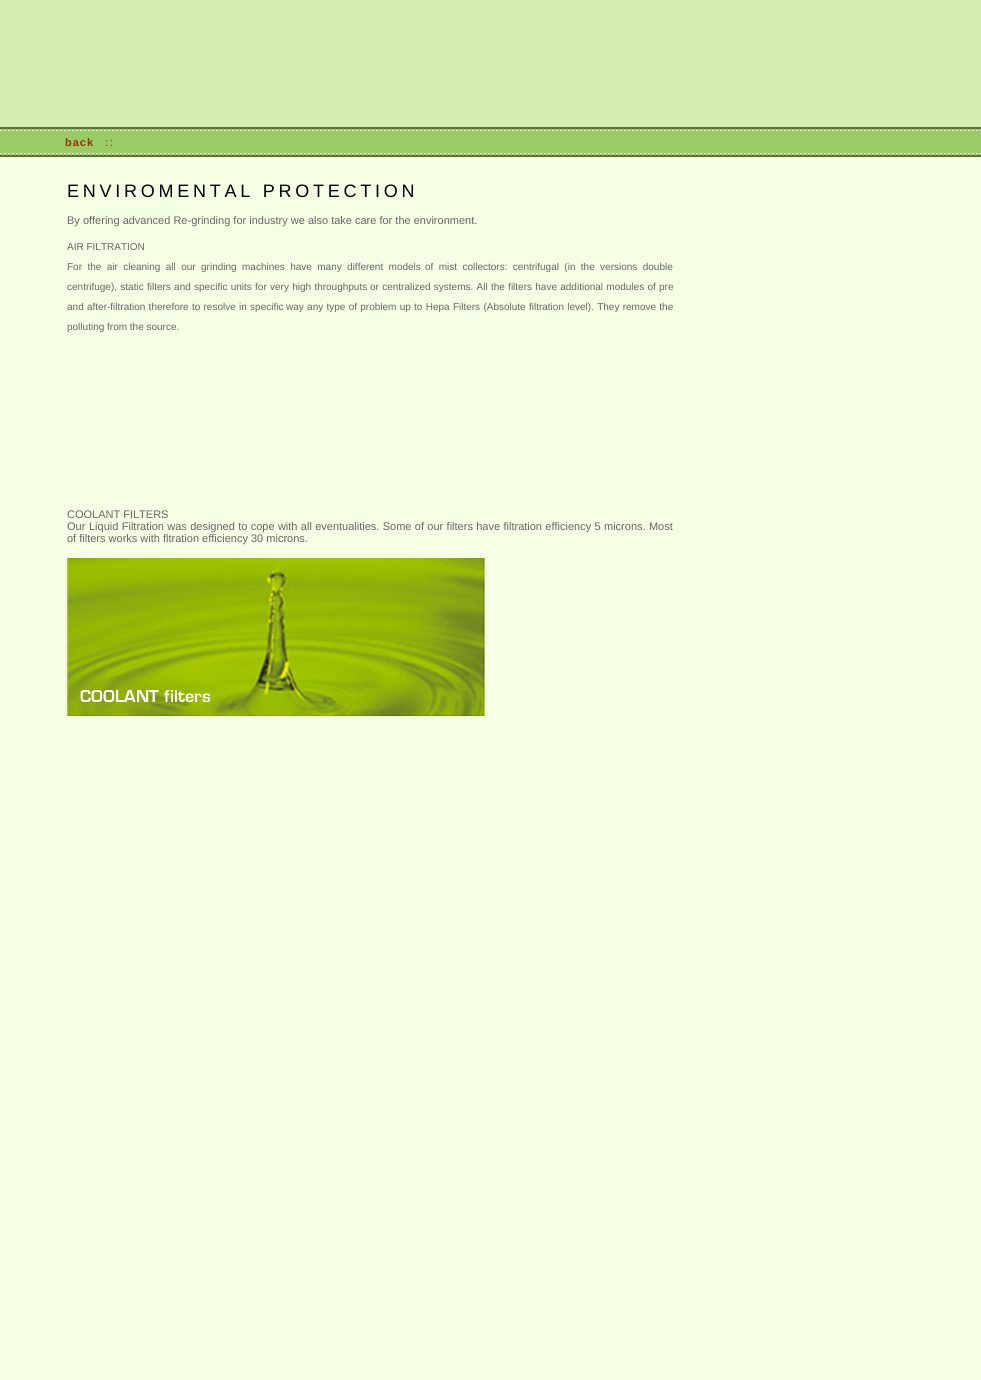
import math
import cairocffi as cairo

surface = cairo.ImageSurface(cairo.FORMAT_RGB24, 981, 1380)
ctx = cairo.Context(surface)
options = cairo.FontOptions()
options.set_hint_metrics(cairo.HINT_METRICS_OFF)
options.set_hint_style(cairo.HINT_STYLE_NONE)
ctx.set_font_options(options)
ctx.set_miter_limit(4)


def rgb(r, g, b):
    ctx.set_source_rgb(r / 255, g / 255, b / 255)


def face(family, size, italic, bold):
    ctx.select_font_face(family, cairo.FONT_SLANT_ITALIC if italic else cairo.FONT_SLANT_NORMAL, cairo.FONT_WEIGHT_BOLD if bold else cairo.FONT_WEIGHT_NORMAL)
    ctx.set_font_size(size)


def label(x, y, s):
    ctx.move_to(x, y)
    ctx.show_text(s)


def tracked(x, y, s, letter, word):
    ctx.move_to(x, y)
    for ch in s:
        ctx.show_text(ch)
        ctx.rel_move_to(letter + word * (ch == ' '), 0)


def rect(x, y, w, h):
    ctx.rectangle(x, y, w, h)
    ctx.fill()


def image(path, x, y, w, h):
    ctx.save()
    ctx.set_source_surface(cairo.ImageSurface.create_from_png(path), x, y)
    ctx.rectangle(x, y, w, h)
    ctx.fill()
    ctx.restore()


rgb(244, 255, 228)
ctx.paint()
rgb(213, 237, 179)
rect(0, 0, 981, 127)
rgb(92, 116, 61)
rect(0, 127, 981, 2)
rgb(153, 204, 102)
rect(0, 129, 981, 26)
image('image0.png', 0, 130, 981, 1)
face('Liberation Sans', 11, 0, 1)
rgb(153, 51, 0)
tracked(65, 146, 'back', 1, 0)
face('Liberation Sans', 11, 0, 0)
tracked(105, 146, '::', 2, 0)
image('image0.png', 0, 153, 981, 1)
rgb(92, 116, 61)
rect(0, 155, 981, 2)
face('Liberation Sans', 18, 0, 0)
rgb(0, 0, 0)
tracked(67, 197, 'ENVIROMENTAL PROTECTION', 3.75, 0)
face('Liberation Sans', 11, 0, 0)
rgb(102, 102, 102)
label(67, 224, 'By offering advanced Re-grinding for industry we also take care for the environment.')
face('Liberation Sans', 10, 0, 0)
label(67, 250, 'AIR FILTRATION')
tracked(67, 270, 'For the air cleaning all our grinding machines have many different models', 0, 2.6)
tracked(425, 270, 'of mist collectors: centrifugal (in the versions double', 0, 2.6)
tracked(67, 290, 'centrifuge), static filters and specific units for very high throughputs', 0, 0.5)
tracked(370, 290, 'or centralized systems. All the filters have additional modules of pre', 0, 0.5)
tracked(67, 310, 'and after-filtration therefore to resolve in specific', 0, 0.5)
tracked(286, 310, 'way any type of problem up to Hepa Filters (Absolute filtration level). They remove the', 0, 0.5)
label(67, 330, 'polluting from the source.')
face('Liberation Sans', 11, 0, 0)
label(67, 518, 'COOLANT FILTERS')
label(67, 530, 'Our')
tracked(89, 530, 'Liquid Filtration was designed to cope with all eventualities. Some of our filters have filtration efficiency 5 microns. Most', 0, 0.3)
label(67, 542, 'of filters works with fltration efficiency 30 microns.')
image('image1.png', 67, 558, 418, 158)
surface.write_to_png('render.png')
